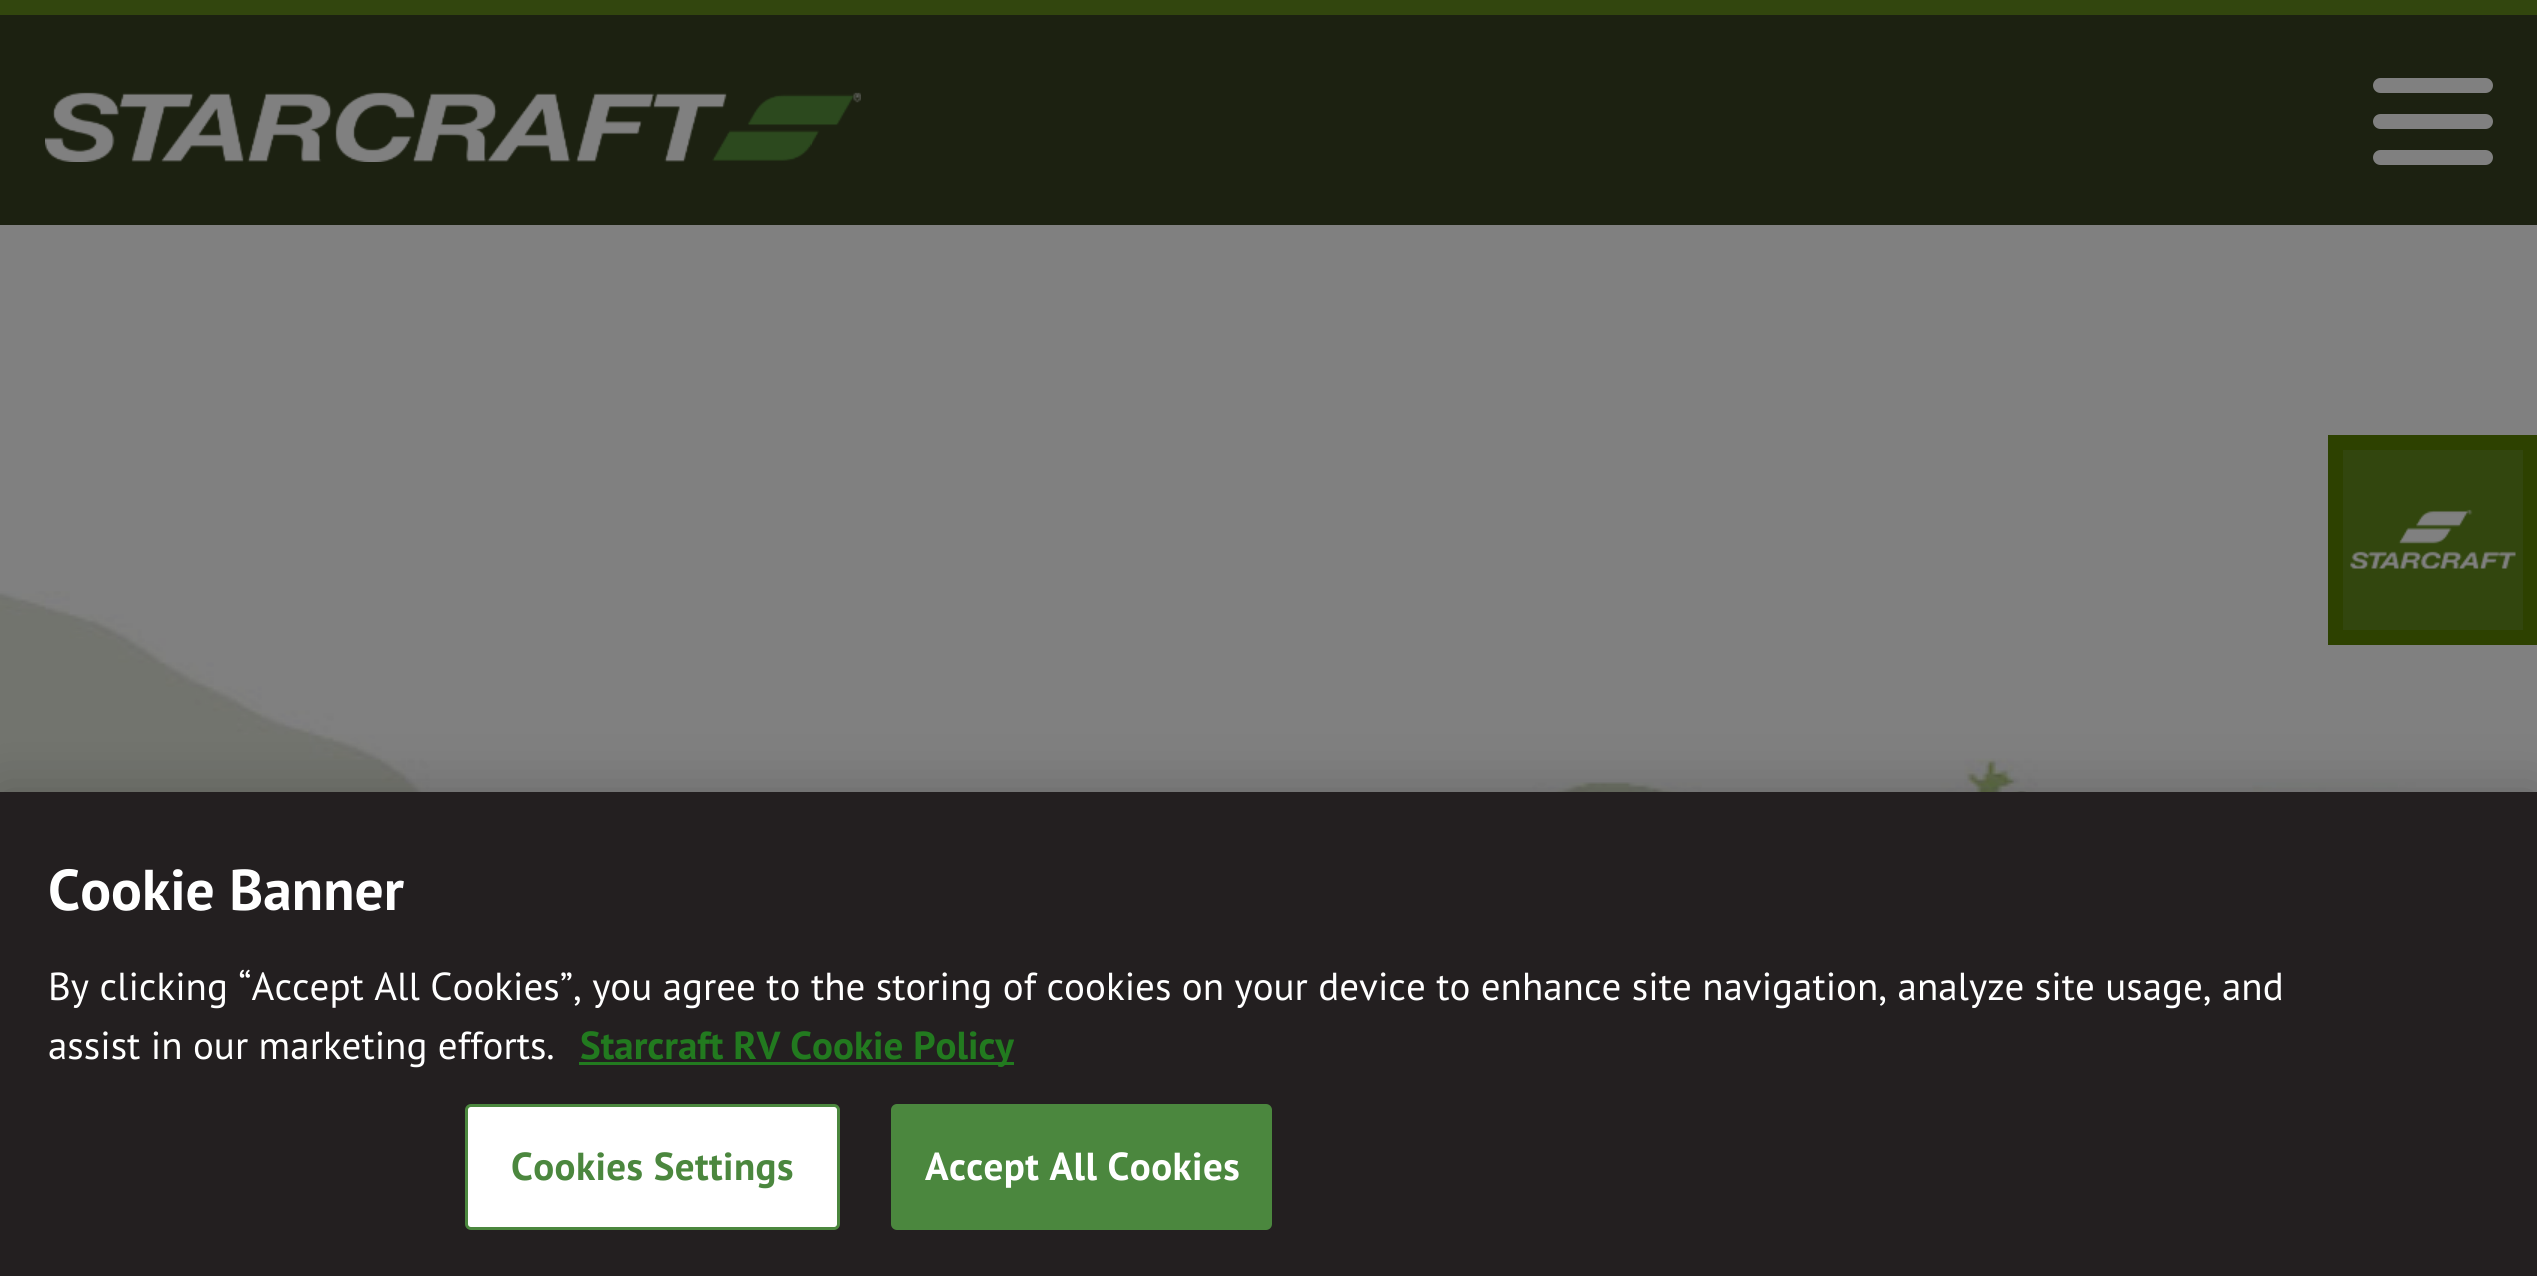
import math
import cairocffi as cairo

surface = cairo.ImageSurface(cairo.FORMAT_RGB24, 2537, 1276)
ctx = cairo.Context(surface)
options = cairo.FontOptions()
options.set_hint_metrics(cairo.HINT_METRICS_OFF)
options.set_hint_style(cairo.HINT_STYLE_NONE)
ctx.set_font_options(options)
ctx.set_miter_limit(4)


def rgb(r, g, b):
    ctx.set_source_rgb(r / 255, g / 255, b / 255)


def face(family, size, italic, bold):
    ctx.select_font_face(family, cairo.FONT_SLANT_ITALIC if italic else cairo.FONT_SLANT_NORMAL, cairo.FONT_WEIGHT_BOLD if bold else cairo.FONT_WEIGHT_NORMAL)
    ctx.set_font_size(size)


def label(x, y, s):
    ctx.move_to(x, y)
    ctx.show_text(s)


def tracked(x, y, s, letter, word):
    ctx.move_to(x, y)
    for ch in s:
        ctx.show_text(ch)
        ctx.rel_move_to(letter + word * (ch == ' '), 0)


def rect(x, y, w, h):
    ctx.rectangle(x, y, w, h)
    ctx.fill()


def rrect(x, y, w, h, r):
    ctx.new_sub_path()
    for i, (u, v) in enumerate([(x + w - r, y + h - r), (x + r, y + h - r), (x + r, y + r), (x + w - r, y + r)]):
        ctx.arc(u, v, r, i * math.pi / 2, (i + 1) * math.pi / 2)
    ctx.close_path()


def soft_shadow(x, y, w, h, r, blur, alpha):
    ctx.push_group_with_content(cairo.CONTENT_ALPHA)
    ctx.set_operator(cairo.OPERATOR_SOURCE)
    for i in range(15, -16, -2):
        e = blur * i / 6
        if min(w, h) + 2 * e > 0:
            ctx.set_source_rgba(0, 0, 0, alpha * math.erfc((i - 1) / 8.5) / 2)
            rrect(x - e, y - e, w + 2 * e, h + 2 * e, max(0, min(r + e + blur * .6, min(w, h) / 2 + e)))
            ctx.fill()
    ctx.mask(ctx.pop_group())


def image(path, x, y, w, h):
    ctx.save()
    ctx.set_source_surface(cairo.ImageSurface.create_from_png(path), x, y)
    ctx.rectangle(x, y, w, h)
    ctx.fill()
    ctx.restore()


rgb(128, 128, 128)
ctx.paint()
rgb(50, 70, 14)
rect(0, 0, 2537, 15)
rgb(28, 33, 17)
rect(0, 15, 2537, 210)
image('image0.png', 45, 92, 816, 70)
rgb(128, 128, 128)
rrect(2373, 78, 120, 15, 7.5)
ctx.fill()
rrect(2373, 114, 120, 15, 7.5)
ctx.fill()
rrect(2373, 150, 120, 15, 7.5)
ctx.fill()
image('image2.png', 0, 591, 2537, 201)
rgb(45, 65, 0)
rect(2328, 435, 209, 210)
image('image1.png', 2343, 450, 180, 180)
rgb(0, 0, 0)
soft_shadow(0, 792, 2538, 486, 0, 27, 0.2)
rgb(35, 31, 32)
rect(0, 792, 2537, 484)
face('PT Sans', 57.5, 0, 1)
rgb(255, 255, 255)
label(48, 910, 'Cookie Banner')
face('PT Sans', 39.02, 0, 0)
label(48, 1000, 'By clicking “Accept All Cookies”, you agree to the storing of cookies on your device to enhance site navigation, analyze site usage, and')
label(48, 1059, 'assist in our marketing efforts.')
rgb(34, 122, 31)
rect(579, 1062, 435, 3)
face('PT Sans', 39.02, 0, 1)
label(580, 1059, 'Starcraft RV Cookie Policy')
rgb(255, 255, 255)
rrect(466.5, 1105.5, 372, 123, 4.5)
ctx.fill_preserve()
rgb(75, 135, 62)
ctx.set_line_width(3)
ctx.stroke()
tracked(511, 1180, 'Cookies Settings', 0.4, 0)
rrect(892.5, 1105.5, 378, 123, 4.5)
ctx.fill_preserve()
ctx.stroke()
rgb(255, 255, 255)
tracked(925, 1180, 'Accept All Cookies', 0.4, 0)
surface.write_to_png('render.png')
